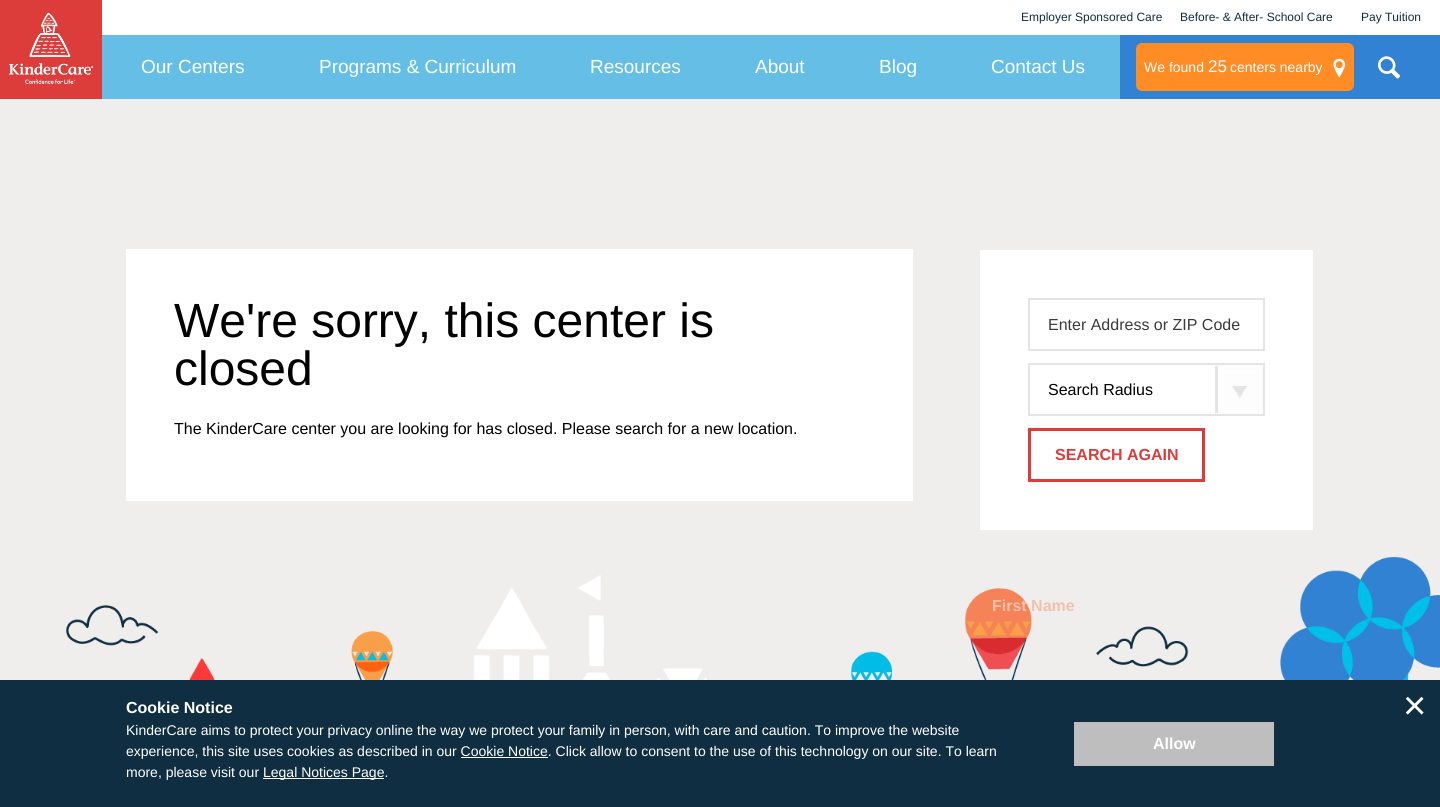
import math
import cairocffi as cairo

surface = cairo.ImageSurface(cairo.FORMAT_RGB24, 1440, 807)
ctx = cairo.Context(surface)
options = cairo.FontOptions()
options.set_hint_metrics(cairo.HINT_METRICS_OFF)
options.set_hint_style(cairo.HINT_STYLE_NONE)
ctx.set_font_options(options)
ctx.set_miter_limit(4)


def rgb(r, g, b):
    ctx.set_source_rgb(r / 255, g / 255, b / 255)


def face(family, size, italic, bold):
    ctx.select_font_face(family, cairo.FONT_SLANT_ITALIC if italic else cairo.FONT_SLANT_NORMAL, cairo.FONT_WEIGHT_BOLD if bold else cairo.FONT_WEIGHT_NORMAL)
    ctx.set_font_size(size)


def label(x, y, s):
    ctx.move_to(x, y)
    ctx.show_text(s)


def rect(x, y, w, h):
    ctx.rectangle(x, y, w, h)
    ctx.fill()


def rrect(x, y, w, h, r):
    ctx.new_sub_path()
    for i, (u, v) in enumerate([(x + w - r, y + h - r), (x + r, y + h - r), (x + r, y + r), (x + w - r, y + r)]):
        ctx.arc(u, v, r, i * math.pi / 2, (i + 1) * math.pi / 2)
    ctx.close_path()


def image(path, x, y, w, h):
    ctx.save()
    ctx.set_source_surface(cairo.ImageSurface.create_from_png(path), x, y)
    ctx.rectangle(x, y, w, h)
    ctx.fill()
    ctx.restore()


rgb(240, 238, 236)
ctx.paint()
rgb(100, 190, 230)
rect(102, 35, 1018, 64)
rgb(220, 60, 58)
rect(0, 0, 102, 99)
image('image0.png', 9, 12, 85, 72)
rgb(255, 255, 255)
rect(102, 0, 1338, 35)
face('Liberation Sans', 12, 0, 0)
rgb(16, 46, 65)
label(1021, 21, 'Employer Sponsored Care')
label(1180, 21, 'Before- & After- School Care')
label(1361, 21, 'Pay Tuition')
face('Liberation Sans', 19, 0, 0)
rgb(255, 255, 255)
label(141, 73, 'Our Centers')
label(319, 73, 'Programs & Curriculum')
label(590, 73, 'Resources')
label(755, 73, 'About')
label(879, 73, 'Blog')
label(991, 73, 'Contact Us')
rgb(50, 130, 212)
rect(1120, 35, 320, 64)
rgb(255, 140, 36)
rrect(1136, 43, 218, 48, 6)
ctx.fill()
face('Liberation Sans', 14, 0, 0)
rgb(255, 255, 255)
label(1144, 72, 'We found')
face('Liberation Sans', 17, 0, 0)
label(1208, 72, '25')
face('Liberation Sans', 14, 0, 0)
label(1230, 72, 'centers nearby')
image('image1.png', 1333, 58, 13, 20)
image('image2.png', 1378, 56, 22, 23)
rect(126, 249, 787, 252)
face('Liberation Sans', 48, 0, 0)
rgb(0, 0, 0)
label(174, 337, 'We\'re sorry, this center is')
label(174, 385, 'closed')
face('Liberation Sans', 16, 0, 0)
label(174, 434, 'The KinderCare center you are looking for has closed. Please search for a new location.')
rgb(255, 255, 255)
rect(980, 250, 333, 280)
ctx.rectangle(1029, 299, 235, 51)
rgb(228, 228, 228)
ctx.stroke()
rgb(59, 59, 59)
label(1048, 330, 'Enter Address or ZIP Code')
ctx.rectangle(1029, 364, 235, 51)
rgb(228, 228, 228)
ctx.stroke()
rgb(0, 0, 0)
label(1048, 395, 'Search Radius')
image('image3.png', 1215, 365, 48, 49)
ctx.rectangle(1029.5, 429.5, 174, 51)
rgb(220, 60, 58)
ctx.set_line_width(3)
ctx.stroke()
face('Liberation Sans', 16, 0, 1)
label(1055, 460, 'SEARCH AGAIN')
image('image4.png', 66, 556, 1374, 124)
rgb(242, 193, 173)
label(992, 611, 'First Name')
rgb(16, 46, 65)
rect(0, 680, 1440, 127)
rgb(255, 255, 255)
label(126, 713, 'Cookie Notice')
face('Liberation Sans', 14, 0, 0)
label(126, 735, 'KinderCare aims to protect your privacy online the way we protect your family in person, with care and caution. To improve the website')
label(126, 756, 'experience, this site uses cookies as described in our Cookie Notice. Click allow to consent to the use of this technology on our site. To learn')
rect(461, 757, 87, 1)
label(126, 777, 'more, please visit our')
rect(263, 778, 121, 1)
label(263, 777, 'Legal Notices Page.')
rgb(190, 190, 190)
rect(1074, 722, 200, 44)
face('Liberation Sans', 16, 0, 1)
rgb(255, 255, 255)
label(1153, 749, 'Allow')
face('Liberation Sans', 40, 0, 0)
label(1403, 719, '×')
surface.write_to_png('render.png')
